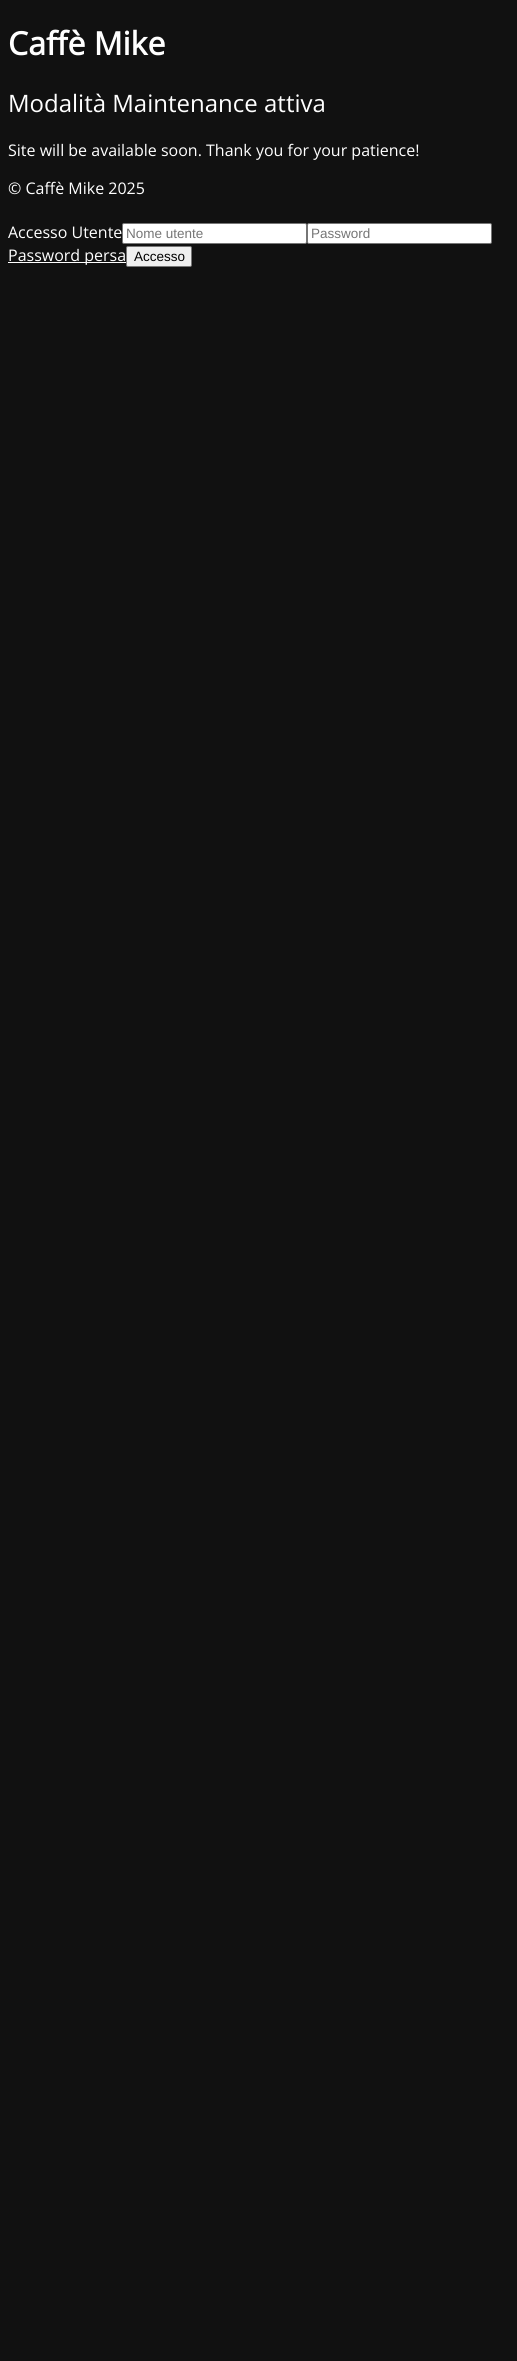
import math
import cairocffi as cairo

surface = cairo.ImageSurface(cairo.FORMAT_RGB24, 517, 2361)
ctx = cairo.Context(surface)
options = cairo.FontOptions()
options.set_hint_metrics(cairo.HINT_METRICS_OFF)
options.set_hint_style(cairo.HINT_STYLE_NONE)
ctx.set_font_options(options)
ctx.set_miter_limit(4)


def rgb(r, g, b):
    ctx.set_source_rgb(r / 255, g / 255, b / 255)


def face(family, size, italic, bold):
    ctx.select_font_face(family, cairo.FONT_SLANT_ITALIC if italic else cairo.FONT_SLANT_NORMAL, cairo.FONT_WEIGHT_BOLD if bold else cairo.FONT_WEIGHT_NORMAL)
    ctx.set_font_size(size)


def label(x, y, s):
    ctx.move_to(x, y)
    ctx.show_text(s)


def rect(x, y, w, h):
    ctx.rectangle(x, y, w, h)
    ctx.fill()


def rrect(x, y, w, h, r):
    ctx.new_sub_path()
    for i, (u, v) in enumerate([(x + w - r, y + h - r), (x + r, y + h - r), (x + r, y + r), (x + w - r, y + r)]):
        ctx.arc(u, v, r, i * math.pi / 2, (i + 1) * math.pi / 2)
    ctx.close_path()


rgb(17, 17, 17)
ctx.paint()
face('Open Sans', 32, 0, 1)
rgb(255, 255, 255)
label(8, 55, 'Caffè Mike')
face('Open Sans', 24, 0, 0)
label(8, 112, 'Modalità Maintenance attiva')
face('Open Sans', 16, 0, 0)
label(8, 156, 'Site will be available soon. Thank you for your patience!')
label(8, 194, '© Caffè Mike 2025')
label(8, 238, 'Accesso Utente')
rrect(122.5, 223.5, 184, 20, 1.5)
ctx.fill_preserve()
rgb(118, 118, 118)
ctx.set_line_width(1)
ctx.stroke()
face('Liberation Sans', 13.5, 0, 0)
rgb(117, 117, 117)
label(126, 238, 'Nome utente')
rgb(255, 255, 255)
rrect(307.5, 223.5, 184, 20, 1.5)
ctx.fill_preserve()
rgb(118, 118, 118)
ctx.stroke()
rgb(117, 117, 117)
label(311, 238, 'Password')
rgb(255, 255, 255)
rect(8, 262, 118, 1)
face('Open Sans', 16, 0, 0)
label(8, 261, 'Password persa')
rgb(239, 239, 239)
rrect(126.5, 246.5, 65, 20, 1.5)
ctx.fill_preserve()
rgb(118, 118, 118)
ctx.stroke()
face('Liberation Sans', 13.5, 0, 0)
rgb(0, 0, 0)
label(134, 261, 'Accesso')
surface.write_to_png('render.png')
